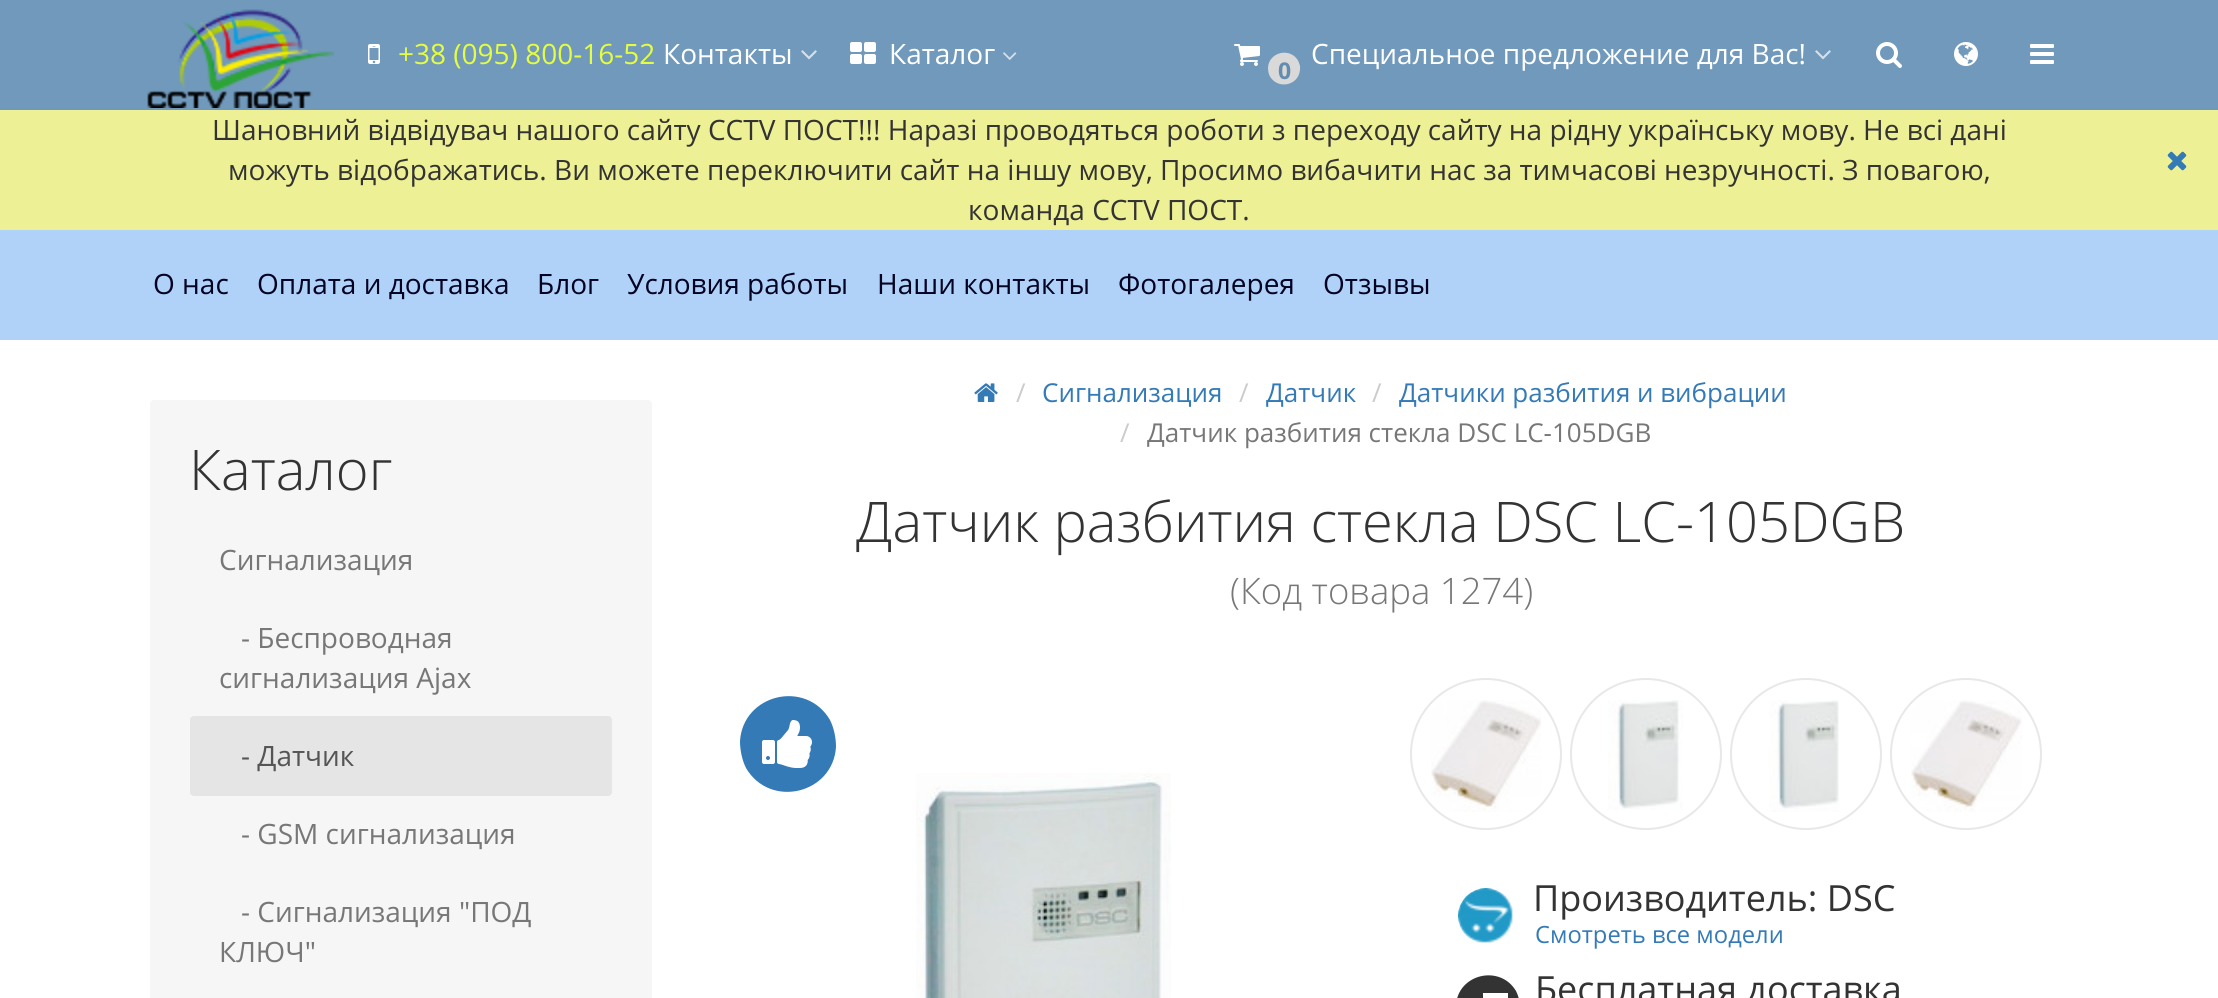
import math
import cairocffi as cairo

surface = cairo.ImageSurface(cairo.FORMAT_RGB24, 2218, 998)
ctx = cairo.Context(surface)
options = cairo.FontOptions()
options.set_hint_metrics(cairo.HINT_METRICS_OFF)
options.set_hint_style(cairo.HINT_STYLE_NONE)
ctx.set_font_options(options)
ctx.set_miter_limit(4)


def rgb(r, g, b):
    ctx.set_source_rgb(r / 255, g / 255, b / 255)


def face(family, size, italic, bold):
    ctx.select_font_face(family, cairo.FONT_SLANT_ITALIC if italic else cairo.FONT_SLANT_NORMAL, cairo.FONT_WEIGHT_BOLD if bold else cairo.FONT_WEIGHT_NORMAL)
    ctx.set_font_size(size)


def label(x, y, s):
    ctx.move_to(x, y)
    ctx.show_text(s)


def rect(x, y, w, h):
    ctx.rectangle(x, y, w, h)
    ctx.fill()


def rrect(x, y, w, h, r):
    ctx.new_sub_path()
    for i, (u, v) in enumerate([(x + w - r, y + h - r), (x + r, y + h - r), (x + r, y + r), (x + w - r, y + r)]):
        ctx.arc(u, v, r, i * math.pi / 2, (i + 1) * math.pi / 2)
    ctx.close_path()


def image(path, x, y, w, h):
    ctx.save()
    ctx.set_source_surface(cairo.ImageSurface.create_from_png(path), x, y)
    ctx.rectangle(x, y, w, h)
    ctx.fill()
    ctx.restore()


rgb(255, 255, 255)
ctx.paint()
rgb(112, 153, 188)
rect(0, 0, 2218, 110)
image('image0.png', 147, 9, 187, 99)
image('image1.png', 368, 44, 12, 20)
face('Open Sans', 28, 0, 0)
rgb(228, 252, 66)
label(398, 64, '+38 (095) 800-16-52')
rgb(255, 255, 255)
label(663, 64, 'Контакты')
image('image2.png', 801, 50, 16, 10)
image('image3.png', 850, 42, 26, 22)
label(889, 64, 'Каталог')
image('image4.png', 1003, 52, 14, 8)
image('image5.png', 1234, 44, 26, 22)
label(1311, 64, 'Специальное предложение для Вас!')
image('image2.png', 1815, 50, 16, 10)
rgb(217, 217, 217)
ctx.new_path()
ctx.move_to(1298, 60.5)
ctx.curve_to(1299.5, 63.5, 1300.5, 66.5, 1300, 69.5)
ctx.curve_to(1299, 85.5, 1278, 90, 1270, 76.5)
ctx.curve_to(1268.5, 74, 1268, 70.5, 1268, 67.5)
ctx.curve_to(1269, 52, 1290, 47, 1298, 60.5)
ctx.close_path()
ctx.fill()
face('Open Sans', 23, 0, 1)
rgb(99, 140, 175)
label(1278, 79, '0')
image('image6.png', 1876, 42, 26, 26)
image('image7.png', 1954, 42, 24, 24)
image('image8.png', 2030, 44, 24, 20)
rgb(177, 210, 248)
rect(0, 230, 2218, 110)
face('Open Sans', 28, 0, 0)
rgb(0, 2, 34)
label(153, 294, 'О нас')
label(257, 294, 'Оплата и доставка')
label(537, 294, 'Блог')
label(627, 294, 'Условия работы')
label(877, 294, 'Наши контакты')
label(1118, 294, 'Фотогалерея')
label(1323, 294, 'Отзывы')
rgb(238, 240, 149)
rect(0, 110, 2218, 120)
rgb(51, 51, 51)
label(212, 140, 'Шановний відвідувач нашого сайту CCTV ПОСТ!!! Наразі проводяться роботи з переходу сайту на рідну українську мову. Не всі дані')
label(228, 180, 'можуть відображатись. Ви можете переключити сайт на іншу мову, Просимо вибачити нас за тимчасові незручності. З повагою,')
label(968, 220, 'команда CCTV ПОСТ.')
image('image9.png', 2167, 151, 20, 20)
rgb(246, 246, 246)
rrect(150, 400, 502, 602, 4)
ctx.fill()
face('Open Sans Light', 56, 0, 0)
rgb(51, 51, 51)
label(189, 490, 'Каталог')
face('Open Sans', 28, 0, 0)
rgb(119, 119, 119)
label(219, 570, 'Сигнализация')
label(241, 648, '- Беспроводная')
label(219, 688, 'сигнализация Ajax')
rgb(229, 229, 229)
rrect(190, 716, 422, 80, 4)
ctx.fill()
rgb(85, 85, 85)
label(241, 766, '- Датчик')
rgb(119, 119, 119)
label(241, 844, '- GSM сигнализация')
label(241, 922, '- Сигнализация "ПОД')
label(219, 962, 'КЛЮЧ"')
image('image10.png', 974, 383, 24, 19)
face('Open Sans', 26, 0, 0)
rgb(204, 204, 204)
label(1016, 402, '/')
rgb(51, 122, 183)
label(1042, 402, 'Сигнализация')
rgb(204, 204, 204)
label(1239, 402, '/')
rgb(51, 122, 183)
label(1266, 402, 'Датчик')
rgb(204, 204, 204)
label(1372, 402, '/')
rgb(51, 122, 183)
label(1399, 402, 'Датчики разбития и вибрации')
rgb(204, 204, 204)
label(1120, 442, '/')
rgb(119, 119, 119)
label(1147, 442, 'Датчик разбития стекла DSC LC-105DGB')
face('Open Sans Light', 56, 0, 0)
rgb(51, 51, 51)
label(856, 542, 'Датчик разбития стекла DSC LC-105DGB')
face('Open Sans Light', 36.5, 0, 0)
rgb(119, 119, 119)
label(1230, 604, '(Код товара 1274)')
rgb(51, 122, 183)
ctx.new_path()
ctx.move_to(830, 720)
ctx.curve_to(834, 728, 836, 738, 836, 747)
ctx.curve_to(833, 794, 770, 809, 746, 768)
ctx.curve_to(742, 760, 740, 750, 740, 741)
ctx.curve_to(743, 694, 806, 679, 830, 720)
ctx.close_path()
ctx.fill()
image('image11.png', 762, 720, 50, 48)
image('image12.png', 916, 773, 255, 225)
ctx.arc(1486, 754, 75, 0, 2 * math.pi)
rgb(232, 232, 232)
ctx.stroke()
image('image13.png', 1431, 700, 110, 112)
ctx.arc(1646, 754, 75, 0, 2 * math.pi)
ctx.stroke()
image('image14.png', 1608, 700, 75, 110)
ctx.arc(1806, 754, 75, 0, 2 * math.pi)
ctx.stroke()
image('image15.png', 1769, 700, 70, 112)
ctx.arc(1966, 754, 75, 0, 2 * math.pi)
ctx.stroke()
image('image16.png', 1911, 700, 111, 112)
image('image17.png', 1458, 888, 55, 55)
face('Open Sans', 36, 0, 0)
rgb(51, 51, 51)
label(1533, 911, 'Производитель: DSC')
face('Open Sans', 23.75, 0, 0)
rgb(51, 122, 183)
label(1535, 943, 'Смотреть все модели')
rgb(51, 51, 51)
ctx.new_path()
ctx.move_to(1516, 991)
ctx.curve_to(1519, 997, 1520, 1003, 1520, 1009)
ctx.curve_to(1518, 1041, 1476, 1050, 1460, 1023)
ctx.curve_to(1457, 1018, 1456, 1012, 1456, 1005)
ctx.curve_to(1458, 974, 1500, 964, 1516, 991)
ctx.close_path()
ctx.fill()
rgb(255, 255, 255)
rect(1483, 993, 25, 5)
face('Open Sans', 36, 0, 0)
rgb(51, 51, 51)
label(1535, 1002, 'Бесплатная доставка')
surface.write_to_png('render.png')
